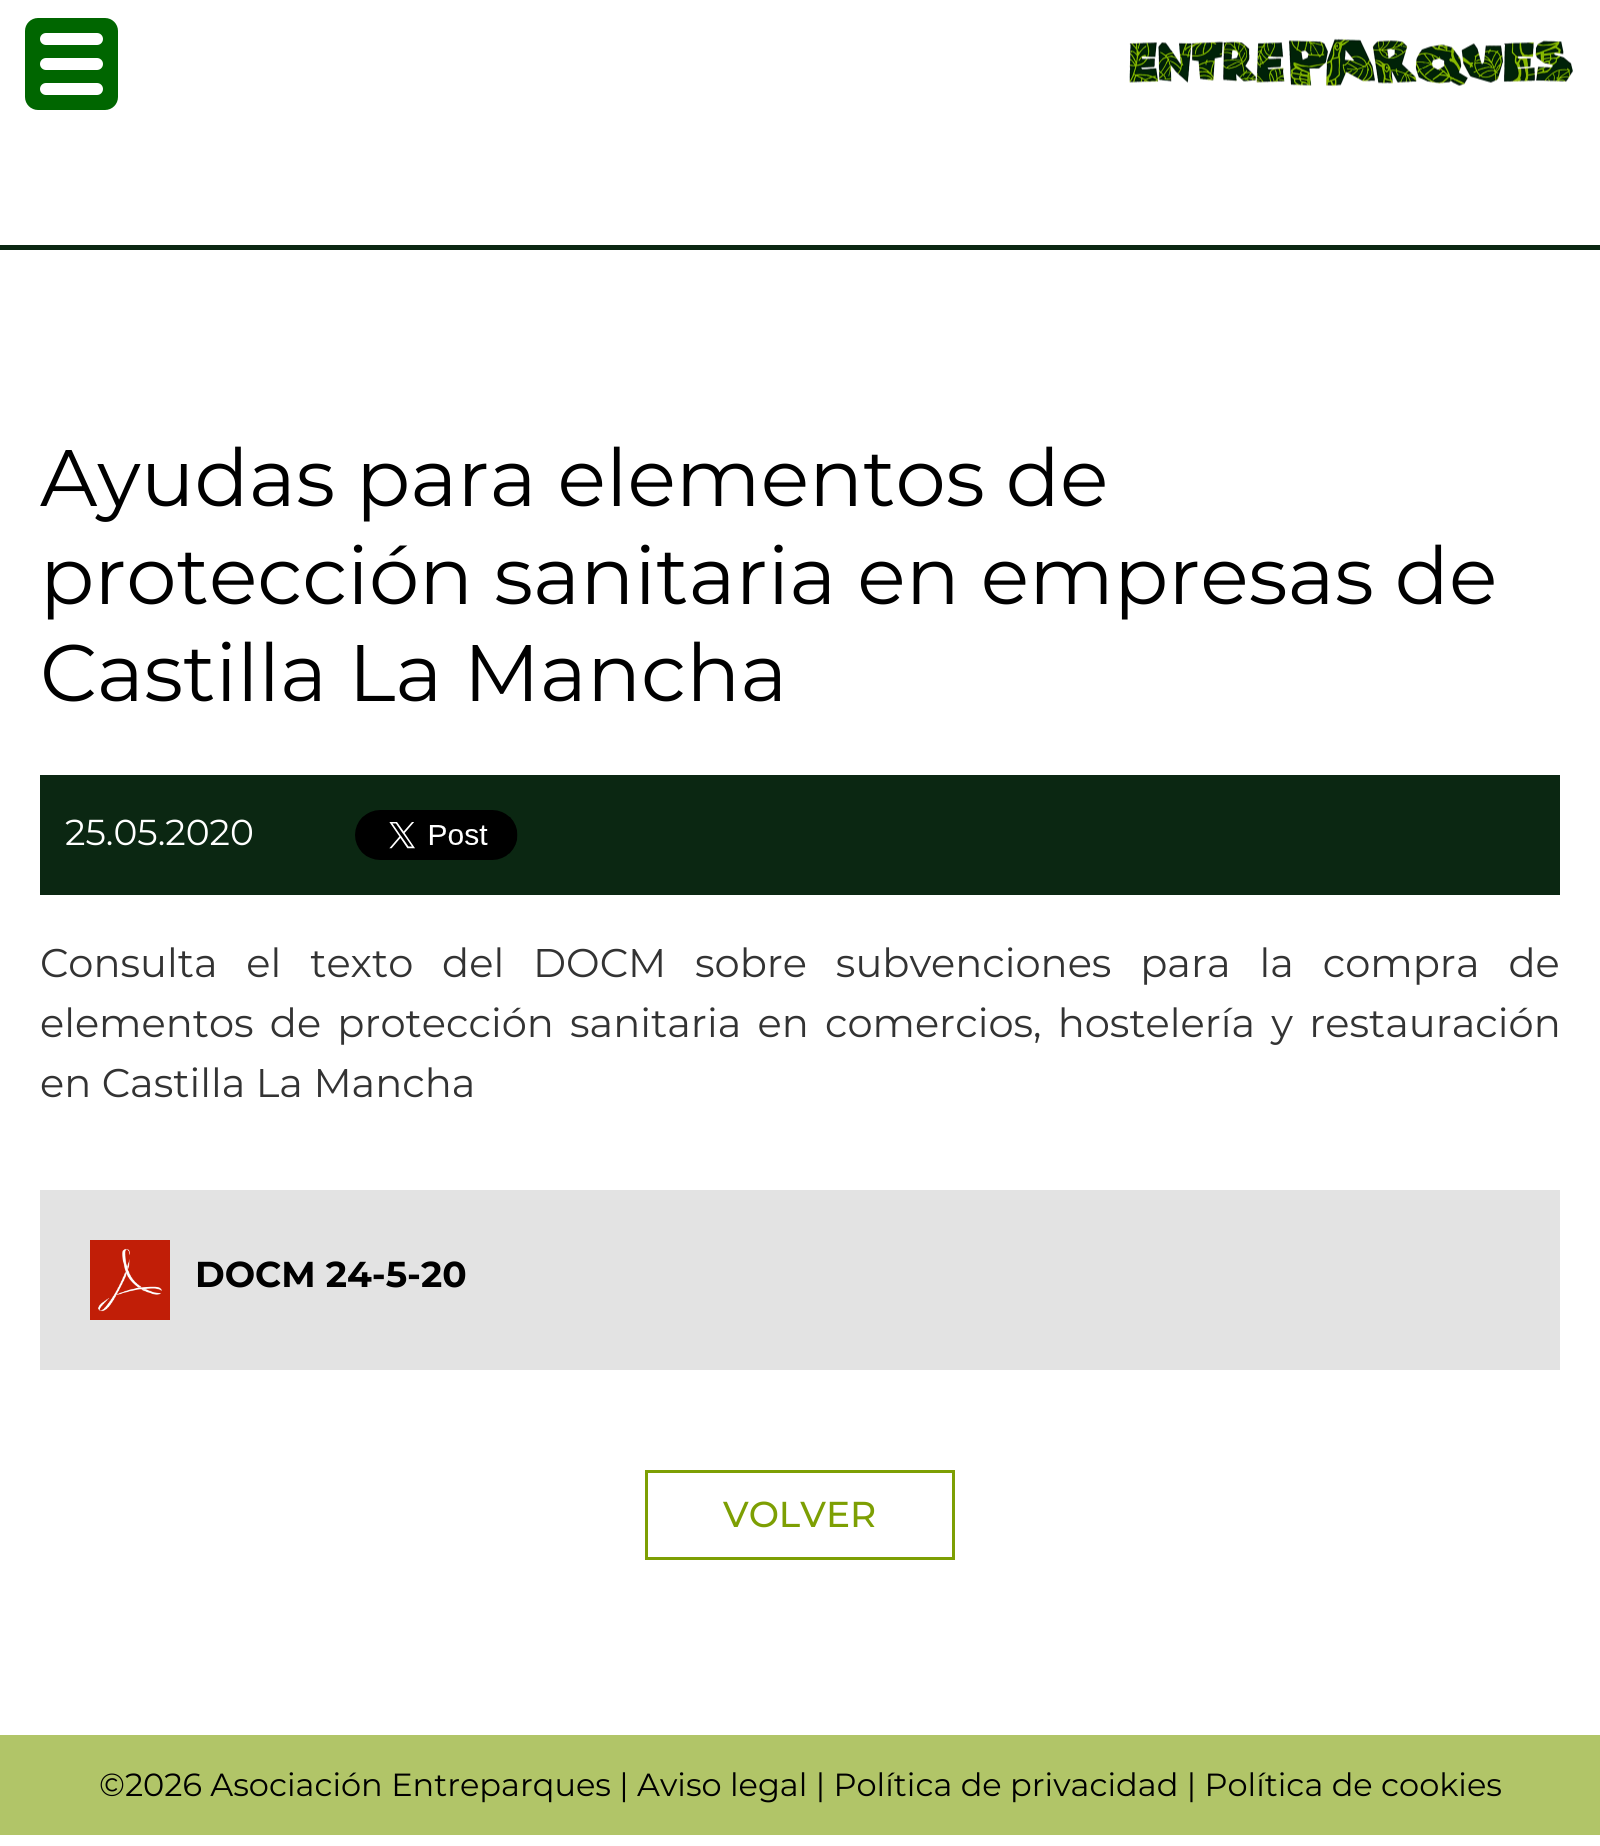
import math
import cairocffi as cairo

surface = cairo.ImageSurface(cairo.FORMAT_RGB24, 1600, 1846)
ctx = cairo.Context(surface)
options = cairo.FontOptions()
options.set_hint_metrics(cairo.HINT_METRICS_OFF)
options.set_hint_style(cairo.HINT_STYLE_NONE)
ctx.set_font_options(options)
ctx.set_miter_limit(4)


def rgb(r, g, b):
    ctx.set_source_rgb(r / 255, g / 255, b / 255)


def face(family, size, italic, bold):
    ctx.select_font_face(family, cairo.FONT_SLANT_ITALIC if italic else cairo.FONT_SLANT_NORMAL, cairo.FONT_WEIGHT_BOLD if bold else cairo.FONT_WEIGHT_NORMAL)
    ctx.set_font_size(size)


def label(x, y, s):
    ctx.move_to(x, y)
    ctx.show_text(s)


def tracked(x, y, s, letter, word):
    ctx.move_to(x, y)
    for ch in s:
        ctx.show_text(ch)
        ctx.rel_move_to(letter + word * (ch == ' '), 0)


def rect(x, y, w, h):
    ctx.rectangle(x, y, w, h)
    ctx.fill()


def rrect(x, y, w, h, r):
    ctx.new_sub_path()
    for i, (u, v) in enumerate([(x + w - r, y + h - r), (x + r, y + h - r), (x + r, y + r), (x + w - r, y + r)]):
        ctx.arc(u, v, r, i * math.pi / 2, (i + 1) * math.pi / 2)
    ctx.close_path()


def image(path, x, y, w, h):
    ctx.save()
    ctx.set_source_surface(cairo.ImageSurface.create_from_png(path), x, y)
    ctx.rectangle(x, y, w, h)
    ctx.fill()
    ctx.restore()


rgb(255, 255, 255)
ctx.paint()
rgb(0, 102, 0)
rrect(25, 18, 93, 92, 13)
ctx.fill()
rgb(255, 255, 255)
rrect(40, 33, 63, 12, 6)
ctx.fill()
rrect(40, 58, 63, 12, 6)
ctx.fill()
rrect(40, 83, 63, 12, 6)
ctx.fill()
image('image0.png', 1129, 38, 444, 49)
rgb(11, 39, 18)
rect(0, 245, 1600, 5)
face('Montserrat', 80, 0, 0)
rgb(0, 0, 0)
label(40, 506, 'Ayudas para elementos de')
label(40, 604, 'protección sanitaria en empresas de')
label(40, 701, 'Castilla La Mancha')
rgb(11, 39, 18)
rect(40, 775, 1520, 120)
face('Montserrat', 36, 0, 0)
rgb(255, 255, 255)
label(65, 845, '25.05.2020')
image('image1.png', 355, 810, 163, 50)
face('Montserrat', 40, 0, 0)
rgb(51, 51, 51)
tracked(40, 977, 'Consulta el texto del DOCM sobre subvenciones para la compra de', 0, 18.4)
tracked(40, 1037, 'elementos de protección sanitaria en comercios, hostelería y restauración', 0, 5.75)
label(40, 1097, 'en Castilla La Mancha')
rgb(227, 227, 227)
rect(40, 1190, 1520, 180)
image('image2.png', 90, 1240, 80, 80)
face('Montserrat', 36, 0, 1)
rgb(0, 0, 0)
label(195, 1287, 'DOCM 24-5-20')
ctx.rectangle(646.5, 1471.5, 307, 87)
rgb(125, 159, 3)
ctx.set_line_width(3)
ctx.stroke()
face('Montserrat Medium', 36, 0, 0)
label(723, 1527, 'VOLVER')
rgb(177, 197, 104)
rect(0, 1735, 1600, 100)
face('Montserrat', 32, 0, 0)
rgb(0, 0, 0)
label(99, 1796, '©2026 Asociación Entreparques | Aviso legal | Política de privacidad | Política de cookies')
surface.write_to_png('render.png')
